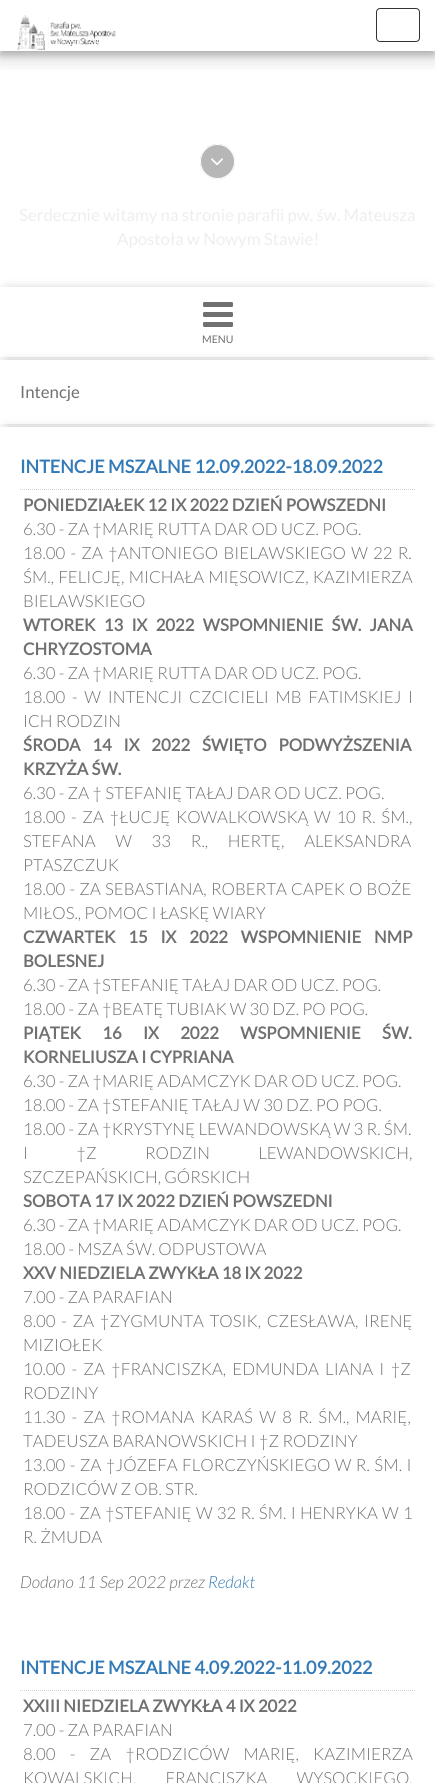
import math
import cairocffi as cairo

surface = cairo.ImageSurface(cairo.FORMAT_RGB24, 435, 1783)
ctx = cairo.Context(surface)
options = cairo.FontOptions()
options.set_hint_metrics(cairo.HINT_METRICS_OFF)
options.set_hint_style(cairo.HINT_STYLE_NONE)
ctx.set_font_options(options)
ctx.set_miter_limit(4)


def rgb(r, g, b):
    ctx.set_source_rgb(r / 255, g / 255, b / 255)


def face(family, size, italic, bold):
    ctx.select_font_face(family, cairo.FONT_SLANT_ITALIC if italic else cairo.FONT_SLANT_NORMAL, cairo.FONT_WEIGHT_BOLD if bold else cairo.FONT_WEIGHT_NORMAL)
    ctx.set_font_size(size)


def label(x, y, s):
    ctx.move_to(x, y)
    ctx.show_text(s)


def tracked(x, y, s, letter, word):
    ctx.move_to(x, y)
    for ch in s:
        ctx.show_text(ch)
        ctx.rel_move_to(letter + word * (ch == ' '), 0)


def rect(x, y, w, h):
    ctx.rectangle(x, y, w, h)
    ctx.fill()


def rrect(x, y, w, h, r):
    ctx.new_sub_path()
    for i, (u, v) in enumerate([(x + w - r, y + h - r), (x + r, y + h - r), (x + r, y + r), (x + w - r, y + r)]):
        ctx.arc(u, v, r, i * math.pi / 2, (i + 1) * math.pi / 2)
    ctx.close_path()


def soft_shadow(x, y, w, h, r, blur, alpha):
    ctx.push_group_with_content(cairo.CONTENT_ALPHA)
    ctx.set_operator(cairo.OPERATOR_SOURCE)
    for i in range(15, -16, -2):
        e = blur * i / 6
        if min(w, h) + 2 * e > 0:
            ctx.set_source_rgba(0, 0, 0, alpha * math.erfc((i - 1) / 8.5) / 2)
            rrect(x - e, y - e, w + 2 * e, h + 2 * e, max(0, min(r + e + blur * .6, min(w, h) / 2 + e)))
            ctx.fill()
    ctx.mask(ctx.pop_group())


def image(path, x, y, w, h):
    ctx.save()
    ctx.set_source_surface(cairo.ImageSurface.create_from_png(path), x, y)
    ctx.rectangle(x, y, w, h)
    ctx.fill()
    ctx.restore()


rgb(255, 255, 255)
ctx.paint()
ctx.save()
ctx.rectangle(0, 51, 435, 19)
ctx.clip()
rgb(0, 0, 0)
soft_shadow(0, 6, 435, 51, 0, 10, 0.19)
ctx.restore()
ctx.save()
ctx.rectangle(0, 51, 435, 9)
ctx.clip()
rgb(0, 0, 0)
soft_shadow(0, 4, 435, 51, 0, 4, 0.2)
ctx.restore()
image('image0.png', 17, 15, 99, 35)
rrect(376.5, 8.5, 43, 33, 3.5)
rgb(51, 51, 51)
ctx.set_line_width(1)
ctx.stroke()
image('image1.png', 200, 144, 35, 35)
ctx.arc(217.5, 161.5, 17, 0, 2 * math.pi)
rgb(255, 255, 255)
ctx.stroke()
image('image2.png', 211, 158, 12, 8)
face('Lato', 16.8, 0, 0)
rgb(238, 238, 238)
label(19, 221, 'Serdecznie witamy na stronie parafii pw. św. Mateusza')
label(117, 245, 'Apostoła w Nowym Stawie!')
ctx.save()
ctx.set_fill_rule(cairo.FILL_RULE_EVEN_ODD)
ctx.new_path()
ctx.move_to(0, 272)
ctx.line_to(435, 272)
ctx.line_to(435, 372)
ctx.line_to(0, 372)
ctx.close_path()
ctx.move_to(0, 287)
ctx.line_to(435, 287)
ctx.line_to(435, 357)
ctx.line_to(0, 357)
ctx.close_path()
ctx.clip()
rgb(0, 0, 0)
soft_shadow(7, 294, 421, 56, 0, 7, 0.51)
ctx.restore()
image('image3.png', 203, 302, 30, 25)
face('Lato', 10.5, 0, 0)
rgb(112, 112, 112)
label(202, 343, 'MENU')
rgb(0, 0, 0)
soft_shadow(7, 367, 421, 50, 0, 7, 0.51)
rgb(255, 255, 255)
rect(0, 360, 435, 64)
face('Lato', 16.8, 0, 0)
rgb(112, 112, 112)
label(20, 398, 'Intencje')
rgb(0, 0, 0)
soft_shadow(7, 434, 421, 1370, 0, 7, 0.51)
rgb(255, 255, 255)
rect(0, 427, 435, 1356)
face('Lato', 18, 0, 1)
rgb(51, 122, 183)
label(20, 473, 'INTENCJE MSZALNE 12.09.2022-18.09.2022')
ctx.new_path()
ctx.move_to(20, 489.5)
ctx.line_to(415, 489.5)
rgb(211, 211, 211)
ctx.set_dash([1, 1])
ctx.stroke()
face('Lato', 16.8, 0, 1)
rgb(112, 112, 112)
label(23, 511, 'PONIEDZIAŁEK 12 IX 2022 DZIEŃ POWSZEDNI')
face('Lato Light', 16.8, 0, 0)
label(23, 535, '6.30 - ZA †MARIĘ RUTTA DAR OD UCZ. POG.')
tracked(23, 559, '18.00 - ZA †ANTONIEGO BIELAWSKIEGO W 22 R.', 0, 2)
tracked(23, 583, 'ŚM., FELICJĘ, MICHAŁA MIĘSOWICZ, KAZIMIERZA', 0, 1)
label(23, 607, 'BIELAWSKIEGO')
face('Lato', 16.8, 0, 1)
tracked(23, 631, 'WTOREK 13 IX 2022 WSPOMNIENIE ŚW. JANA', 0, 5)
label(23, 655, 'CHRYZOSTOMA')
face('Lato Light', 16.8, 0, 0)
label(23, 679, '6.30 - ZA †MARIĘ RUTTA DAR OD UCZ. POG.')
tracked(23, 703, '18.00 - W INTENCJI CZCICIELI MB FATIMSKIEJ I', 0, 3.5)
label(23, 727, 'ICH RODZIN')
face('Lato', 16.8, 0, 1)
tracked(23, 751, 'ŚRODA 14 IX 2022 ŚWIĘTO PODWYŻSZENIA', 0, 8.5)
label(23, 775, 'KRZYŻA ŚW.')
face('Lato Light', 16.8, 0, 0)
label(23, 799, '6.30 - ZA † STEFANIĘ TAŁAJ DAR OD UCZ. POG.')
tracked(23, 823, '18.00 - ZA †ŁUCJĘ KOWALKOWSKĄ W 10 R. ŚM.,', 0, 2.5)
tracked(23, 847, 'STEFANA W 33 R., HERTĘ, ALEKSANDRA', 0, 16.5)
label(23, 871, 'PTASZCZUK')
tracked(23, 895, '18.00 - ZA SEBASTIANA, ROBERTA CAPEK O BOŻE', 0, 1)
label(23, 919, 'MIŁOS., POMOC I ŁASKĘ WIARY')
face('Lato', 16.8, 0, 1)
tracked(23, 943, 'CZWARTEK 15 IX 2022 WSPOMNIENIE NMP', 0, 9.5)
label(23, 967, 'BOLESNEJ')
face('Lato Light', 16.8, 0, 0)
label(23, 991, '6.30 - ZA †STEFANIĘ TAŁAJ DAR OD UCZ. POG.')
label(23, 1015, '18.00 - ZA †BEATĘ TUBIAK W 30 DZ. PO POG.')
face('Lato', 16.8, 0, 1)
tracked(23, 1039, 'PIĄTEK 16 IX 2022 WSPOMNIENIE ŚW.', 0, 18)
label(23, 1063, 'KORNELIUSZA I CYPRIANA')
face('Lato Light', 16.8, 0, 0)
label(23, 1087, '6.30 - ZA †MARIĘ ADAMCZYK DAR OD UCZ. POG.')
label(23, 1111, '18.00 - ZA †STEFANIĘ TAŁAJ W 30 DZ. PO POG.')
label(23, 1135, '18.00 - ZA †KRYSTYNĘ LEWANDOWSKĄ W 3 R. ŚM.')
tracked(23, 1159, 'I †Z RODZIN LEWANDOWSKICH,', 0, 45)
label(23, 1183, 'SZCZEPAŃSKICH, GÓRSKICH')
face('Lato', 16.8, 0, 1)
label(23, 1207, 'SOBOTA 17 IX 2022 DZIEŃ POWSZEDNI')
face('Lato Light', 16.8, 0, 0)
label(23, 1231, '6.30 - ZA †MARIĘ ADAMCZYK DAR OD UCZ. POG.')
label(23, 1255, '18.00 - MSZA ŚW. ODPUSTOWA')
face('Lato', 16.8, 0, 1)
label(23, 1279, 'XXV NIEDZIELA ZWYKŁA 18 IX 2022')
face('Lato Light', 16.8, 0, 0)
label(23, 1303, '7.00 - ZA PARAFIAN')
tracked(23, 1327, '8.00 - ZA †ZYGMUNTA TOSIK, CZESŁAWA, IRENĘ', 0, 2.5)
label(23, 1351, 'MIZIOŁEK')
tracked(23, 1375, '10.00 - ZA †FRANCISZKA, EDMUNDA LIANA I †Z', 0, 3)
label(23, 1399, 'RODZINY')
tracked(23, 1423, '11.30 - ZA †ROMANA KARAŚ W 8 R. ŚM., MARIĘ,', 0, 3)
label(23, 1447, 'TADEUSZA BARANOWSKICH I †Z RODZINY')
tracked(23, 1471, '13.00 - ZA †JÓZEFA FLORCZYŃSKIEGO W R. ŚM. I', 0, 1.25)
label(23, 1495, 'RODZICÓW Z OB. STR.')
tracked(23, 1519, '18.00 - ZA †STEFANIĘ W 32 R. ŚM. I HENRYKA W 1', 0, 1)
label(23, 1543, 'R. ŻMUDA')
face('Lato Light', 16.8, 1, 0)
label(20, 1588, 'Dodano 11 Sep 2022 przez')
rgb(51, 122, 183)
label(208, 1588, 'Redakt')
face('Lato', 18, 0, 1)
label(20, 1674, 'INTENCJE MSZALNE 4.09.2022-11.09.2022')
ctx.new_path()
ctx.move_to(20, 1690.5)
ctx.line_to(415, 1690.5)
rgb(211, 211, 211)
ctx.stroke()
face('Lato', 16.8, 0, 1)
rgb(112, 112, 112)
label(23, 1712, 'XXIII NIEDZIELA ZWYKŁA 4 IX 2022')
face('Lato Light', 16.8, 0, 0)
label(23, 1736, '7.00 - ZA PARAFIAN')
tracked(23, 1760, '8.00 - ZA †RODZICÓW MARIĘ, KAZIMIERZA', 0, 11)
tracked(23, 1784, 'KOWALSKICH, FRANCISZKA WYSOCKIEGO,', 0, 26)
surface.write_to_png('render.png')
